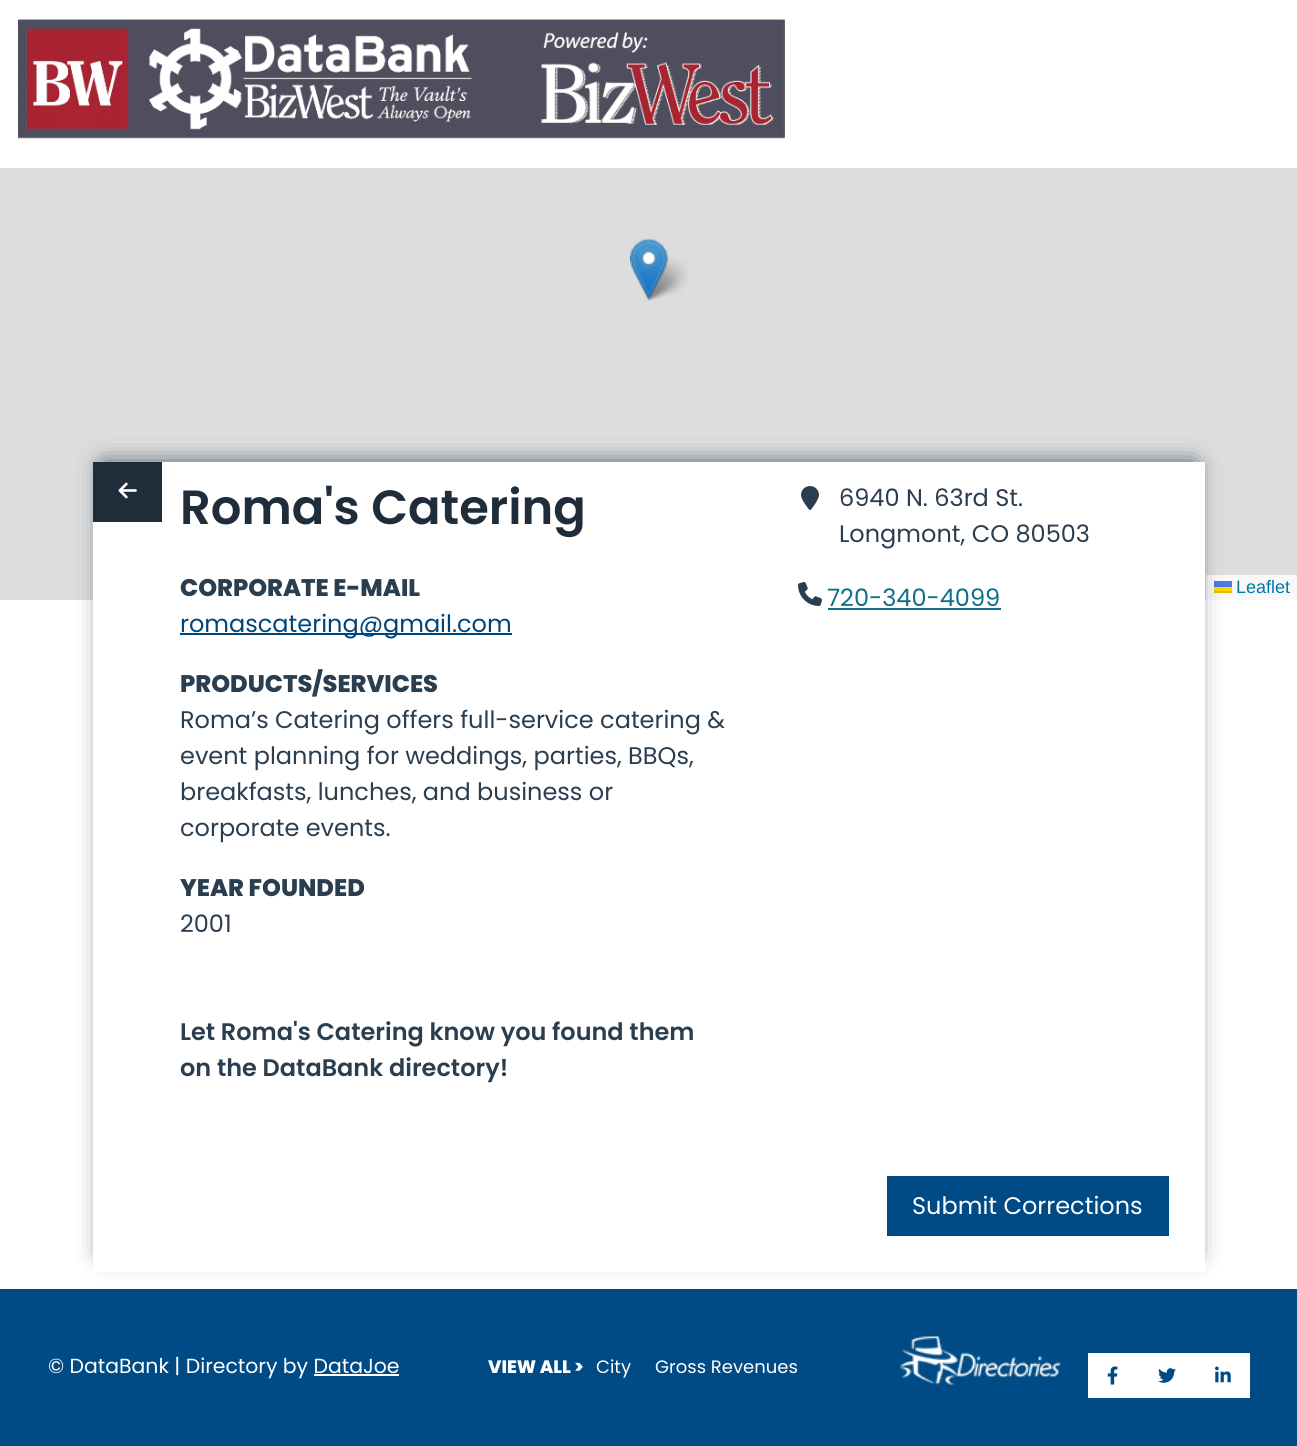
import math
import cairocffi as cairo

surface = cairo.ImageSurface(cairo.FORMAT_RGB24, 1297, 1446)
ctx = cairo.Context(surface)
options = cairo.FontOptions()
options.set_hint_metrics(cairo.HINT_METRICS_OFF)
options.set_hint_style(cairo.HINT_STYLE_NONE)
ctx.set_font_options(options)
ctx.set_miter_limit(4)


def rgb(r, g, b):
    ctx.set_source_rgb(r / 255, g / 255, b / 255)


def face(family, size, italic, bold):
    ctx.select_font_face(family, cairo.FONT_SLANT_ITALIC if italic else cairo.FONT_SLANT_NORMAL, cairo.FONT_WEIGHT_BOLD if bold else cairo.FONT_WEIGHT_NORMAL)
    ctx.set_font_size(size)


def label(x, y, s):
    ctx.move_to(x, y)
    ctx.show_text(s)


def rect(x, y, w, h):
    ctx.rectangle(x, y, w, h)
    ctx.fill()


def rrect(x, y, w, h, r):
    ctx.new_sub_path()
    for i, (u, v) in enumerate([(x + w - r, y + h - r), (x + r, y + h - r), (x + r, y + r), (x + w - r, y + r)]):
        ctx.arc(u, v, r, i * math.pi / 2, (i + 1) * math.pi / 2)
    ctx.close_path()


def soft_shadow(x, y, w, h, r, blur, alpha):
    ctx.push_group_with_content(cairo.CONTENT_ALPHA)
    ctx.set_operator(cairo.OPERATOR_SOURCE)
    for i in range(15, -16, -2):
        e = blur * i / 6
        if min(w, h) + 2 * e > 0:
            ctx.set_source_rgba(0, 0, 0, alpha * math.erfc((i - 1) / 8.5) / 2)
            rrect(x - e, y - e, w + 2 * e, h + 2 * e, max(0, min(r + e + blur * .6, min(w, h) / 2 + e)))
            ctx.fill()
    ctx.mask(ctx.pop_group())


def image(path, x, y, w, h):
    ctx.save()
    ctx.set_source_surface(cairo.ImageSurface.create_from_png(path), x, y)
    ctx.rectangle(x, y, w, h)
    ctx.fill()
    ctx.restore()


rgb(255, 255, 255)
ctx.paint()
image('image0.png', 18, 19, 767, 120)
rgb(221, 221, 221)
rect(0, 168, 1297, 432)
rgb(248, 248, 248)
rect(1206, 575, 91, 25)
rgb(76, 123, 225)
rect(1214, 581, 18, 6)
rgb(255, 213, 0)
rect(1214, 587, 18, 4)
rgb(224, 188, 0)
rect(1214, 591, 18, 2)
rgb(43, 62, 80)
soft_shadow(104, 465, 1090, 789, 0, 12, 1)
rgb(255, 255, 255)
rect(93, 462, 1112, 810)
rgb(31, 45, 59)
rect(93, 462, 69, 60)
image('image1.png', 118, 482, 19, 17)
face('Poppins SemiBold', 48, 0, 0)
label(180, 524, 'Roma\'s Catering')
face('Poppins ExtraBold', 24, 0, 0)
rgb(43, 62, 80)
label(180, 596, 'CORPORATE E-MAIL')
rgb(0, 68, 120)
rect(180, 633, 332, 2)
face('Poppins', 24, 0, 0)
label(180, 632, 'romascatering@gmail.com')
face('Poppins ExtraBold', 24, 0, 0)
rgb(43, 62, 80)
label(180, 692, 'PRODUCTS/SERVICES')
face('Poppins', 24, 0, 0)
label(180, 728, 'Roma’s Catering offers full-service catering &')
label(180, 764, 'event planning for weddings, parties, BBQs,')
label(180, 800, 'breakfasts, lunches, and business or')
label(180, 836, 'corporate events.')
face('Poppins ExtraBold', 24, 0, 0)
label(180, 896, 'YEAR FOUNDED')
face('Poppins', 24, 0, 0)
label(180, 932, '2001')
face('Poppins SemiBold', 24, 0, 0)
label(180, 1040, 'Let Roma\'s Catering know you found them')
label(180, 1076, 'on the DataBank directory!')
image('image2.png', 801, 486, 18, 24)
face('Poppins', 24, 0, 0)
label(839, 506, '6940 N. 63rd St.')
label(839, 542, 'Longmont, CO 80503')
image('image3.png', 798, 582, 24, 24)
rgb(12, 112, 138)
label(827, 606, '720-340-4099')
rect(828, 608, 173, 2)
rgb(0, 75, 133)
rect(887, 1176, 282, 60)
rgb(255, 255, 255)
label(912, 1214, 'Submit Corrections')
image('image5.png', 643, 257, 46, 44)
image('image4.png', 630, 238, 38, 63)
face('Liberation Sans', 18, 0, 0)
rgb(0, 120, 168)
label(1236, 593, 'Leaflet')
rgb(0, 75, 133)
rect(0, 1289, 1297, 157)
face('Poppins', 20.4, 0, 0)
rgb(255, 255, 255)
label(48, 1373, '© DataBank | Directory by DataJoe')
rect(314, 1374, 85, 2)
face('Poppins ExtraBold', 18, 0, 0)
label(488, 1373, 'VIEW ALL >')
face('Poppins', 18, 0, 0)
label(596, 1373, 'City')
label(655, 1373, 'Gross Revenues')
image('image6.png', 900, 1336, 161, 49)
rect(1088, 1353, 162, 45)
image('image7.png', 1107, 1366, 11, 19)
image('image8.png', 1158, 1368, 18, 15)
image('image9.png', 1215, 1366, 16, 17)
surface.write_to_png('render.png')
